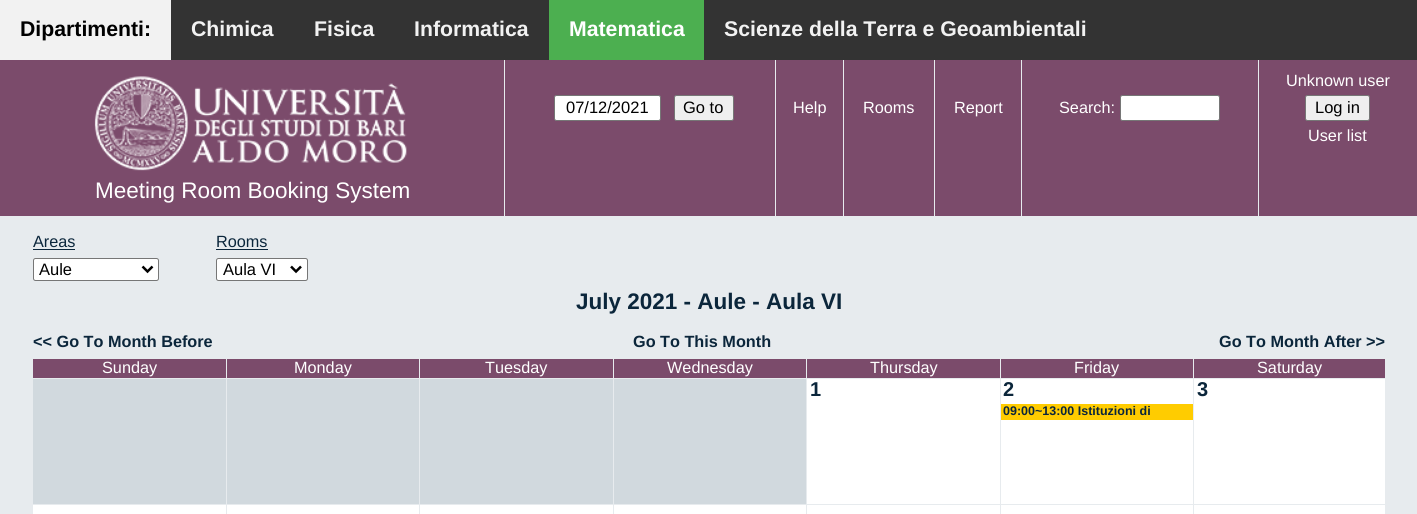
import math
import cairocffi as cairo

surface = cairo.ImageSurface(cairo.FORMAT_RGB24, 1417, 514)
ctx = cairo.Context(surface)
options = cairo.FontOptions()
options.set_hint_metrics(cairo.HINT_METRICS_OFF)
options.set_hint_style(cairo.HINT_STYLE_NONE)
ctx.set_font_options(options)
ctx.set_miter_limit(4)


def rgb(r, g, b):
    ctx.set_source_rgb(r / 255, g / 255, b / 255)


def face(family, size, italic, bold):
    ctx.select_font_face(family, cairo.FONT_SLANT_ITALIC if italic else cairo.FONT_SLANT_NORMAL, cairo.FONT_WEIGHT_BOLD if bold else cairo.FONT_WEIGHT_NORMAL)
    ctx.set_font_size(size)


def label(x, y, s):
    ctx.move_to(x, y)
    ctx.show_text(s)


def rect(x, y, w, h):
    ctx.rectangle(x, y, w, h)
    ctx.fill()


def rrect(x, y, w, h, r):
    ctx.new_sub_path()
    for i, (u, v) in enumerate([(x + w - r, y + h - r), (x + r, y + h - r), (x + r, y + r), (x + w - r, y + r)]):
        ctx.arc(u, v, r, i * math.pi / 2, (i + 1) * math.pi / 2)
    ctx.close_path()


def image(path, x, y, w, h):
    ctx.save()
    ctx.set_source_surface(cairo.ImageSurface.create_from_png(path), x, y)
    ctx.rectangle(x, y, w, h)
    ctx.fill()
    ctx.restore()


rgb(231, 235, 238)
ctx.paint()
rgb(51, 51, 51)
rect(171, 0, 1246, 60)
rgb(242, 242, 242)
rect(0, 0, 171, 60)
face('Liberation Sans', 21.25, 0, 1)
rgb(0, 0, 0)
label(20, 36, 'Dipartimenti:')
rgb(242, 242, 242)
label(191, 36, 'Chimica')
label(314, 36, 'Fisica')
label(414, 36, 'Informatica')
rgb(76, 175, 80)
rect(549, 0, 155, 60)
rgb(255, 255, 255)
label(569, 36, 'Matematica')
rgb(242, 242, 242)
label(724, 36, 'Scienze della Terra e Geoambientali')
rgb(123, 75, 107)
rect(0, 60, 1417, 156)
rgb(231, 235, 238)
rect(504, 60, 1, 156)
rgb(255, 255, 255)
rrect(554.5, 95.5, 106, 25, 2)
ctx.fill_preserve()
rgb(118, 118, 118)
ctx.set_line_width(1)
ctx.stroke()
face('Liberation Sans', 16.5, 0, 0)
rgb(0, 0, 0)
label(566, 113, '07/12/2021')
rgb(239, 239, 239)
rrect(674.5, 95.5, 59, 25, 2)
ctx.fill_preserve()
rgb(118, 118, 118)
ctx.stroke()
rgb(0, 0, 0)
label(683, 113, 'Go to')
rgb(231, 235, 238)
rect(775, 60, 1, 156)
face('Liberation Sans', 16.25, 0, 0)
rgb(255, 255, 255)
label(793, 113, 'Help')
rgb(231, 235, 238)
rect(843, 60, 1, 156)
rgb(255, 255, 255)
label(863, 113, 'Rooms')
rgb(231, 235, 238)
rect(934, 60, 1, 156)
rgb(255, 255, 255)
label(954, 113, 'Report')
rgb(231, 235, 238)
rect(1021, 60, 1, 156)
rgb(255, 255, 255)
label(1059, 113, 'Search:')
rrect(1120.5, 95.5, 99, 25, 2)
ctx.fill_preserve()
rgb(118, 118, 118)
ctx.stroke()
rgb(231, 235, 238)
rect(1258, 60, 1, 156)
rgb(255, 255, 255)
label(1286, 86, 'Unknown user')
rgb(239, 239, 239)
rrect(1305.5, 95.5, 64, 25, 2)
ctx.fill_preserve()
rgb(118, 118, 118)
ctx.stroke()
face('Liberation Sans', 16.5, 0, 0)
rgb(0, 0, 0)
label(1315, 113, 'Log in')
face('Liberation Sans', 16.25, 0, 0)
rgb(255, 255, 255)
label(1308, 141, 'User list')
image('image0.png', 94, 76, 313, 95)
face('Liberation Sans', 22.5, 0, 0)
label(95, 198, 'Meeting Room Booking System')
face('Liberation Sans', 16.25, 0, 0)
rgb(11, 38, 59)
label(33, 247, 'Areas')
rect(33, 249, 42, 1)
rgb(255, 255, 255)
rrect(33.5, 258.5, 125, 22, 2)
ctx.fill_preserve()
rgb(118, 118, 118)
ctx.stroke()
ctx.new_path()
ctx.move_to(142.5, 266.5)
ctx.line_to(147.5, 271.5)
ctx.line_to(152.5, 266.5)
rgb(0, 0, 0)
ctx.set_line_width(2.5)
ctx.stroke()
face('Liberation Sans', 16.5, 0, 0)
label(39, 275, 'Aule')
face('Liberation Sans', 16.25, 0, 0)
rgb(11, 38, 59)
label(216, 247, 'Rooms')
rect(216, 249, 52, 1)
rgb(255, 255, 255)
rrect(216.5, 258.5, 91, 22, 2)
ctx.fill_preserve()
rgb(118, 118, 118)
ctx.set_line_width(1)
ctx.stroke()
ctx.new_path()
ctx.move_to(291, 266.5)
ctx.line_to(296, 271.5)
ctx.line_to(301, 266.5)
rgb(0, 0, 0)
ctx.set_line_width(2.5)
ctx.stroke()
face('Liberation Sans', 16.5, 0, 0)
label(223, 275, 'Aula VI')
face('Liberation Sans', 22.5, 0, 1)
rgb(11, 38, 59)
label(576, 309, 'July 2021 - Aule - Aula VI')
face('Liberation Sans', 16.25, 0, 1)
label(33, 347, '<< Go To Month Before')
label(633, 347, 'Go To This Month')
label(1219, 347, 'Go To Month After >>')
rgb(123, 75, 107)
rect(33, 359, 193, 19)
face('Liberation Sans', 16.25, 0, 0)
rgb(255, 255, 255)
label(102, 373, 'Sunday')
rgb(123, 75, 107)
rect(227, 359, 192, 19)
rgb(255, 255, 255)
label(294, 373, 'Monday')
rgb(123, 75, 107)
rect(420, 359, 193, 19)
rgb(255, 255, 255)
label(485, 373, 'Tuesday')
rgb(123, 75, 107)
rect(614, 359, 192, 19)
rgb(255, 255, 255)
label(667, 373, 'Wednesday')
rgb(123, 75, 107)
rect(807, 359, 193, 19)
rgb(255, 255, 255)
label(870, 373, 'Thursday')
rgb(123, 75, 107)
rect(1001, 359, 192, 19)
rgb(255, 255, 255)
label(1074, 373, 'Friday')
rgb(123, 75, 107)
rect(1194, 359, 191, 19)
rgb(255, 255, 255)
label(1257, 373, 'Saturday')
rgb(209, 217, 222)
rect(33, 379, 193, 125)
rect(227, 379, 192, 125)
rect(420, 379, 193, 125)
rect(614, 379, 192, 125)
rgb(255, 255, 255)
rect(807, 379, 193, 125)
face('Liberation Sans', 20, 0, 1)
rgb(11, 38, 59)
label(810, 396, '1')
rgb(255, 255, 255)
rect(1001, 379, 192, 125)
rgb(11, 38, 59)
label(1003, 396, '2')
rgb(255, 204, 0)
rect(1001, 404, 192, 16)
face('Liberation Sans', 12.5, 0, 1)
rgb(11, 38, 59)
label(1003, 415, '09:00~13:00 Istituzioni di')
rgb(255, 255, 255)
rect(1194, 379, 191, 125)
face('Liberation Sans', 20, 0, 1)
rgb(11, 38, 59)
label(1197, 396, '3')
rgb(255, 255, 255)
rect(33, 505, 193, 9)
rect(227, 505, 192, 9)
rect(420, 505, 193, 9)
rect(614, 505, 192, 9)
rect(807, 505, 193, 9)
rect(1001, 505, 192, 9)
rect(1194, 505, 191, 9)
surface.write_to_png('render.png')
